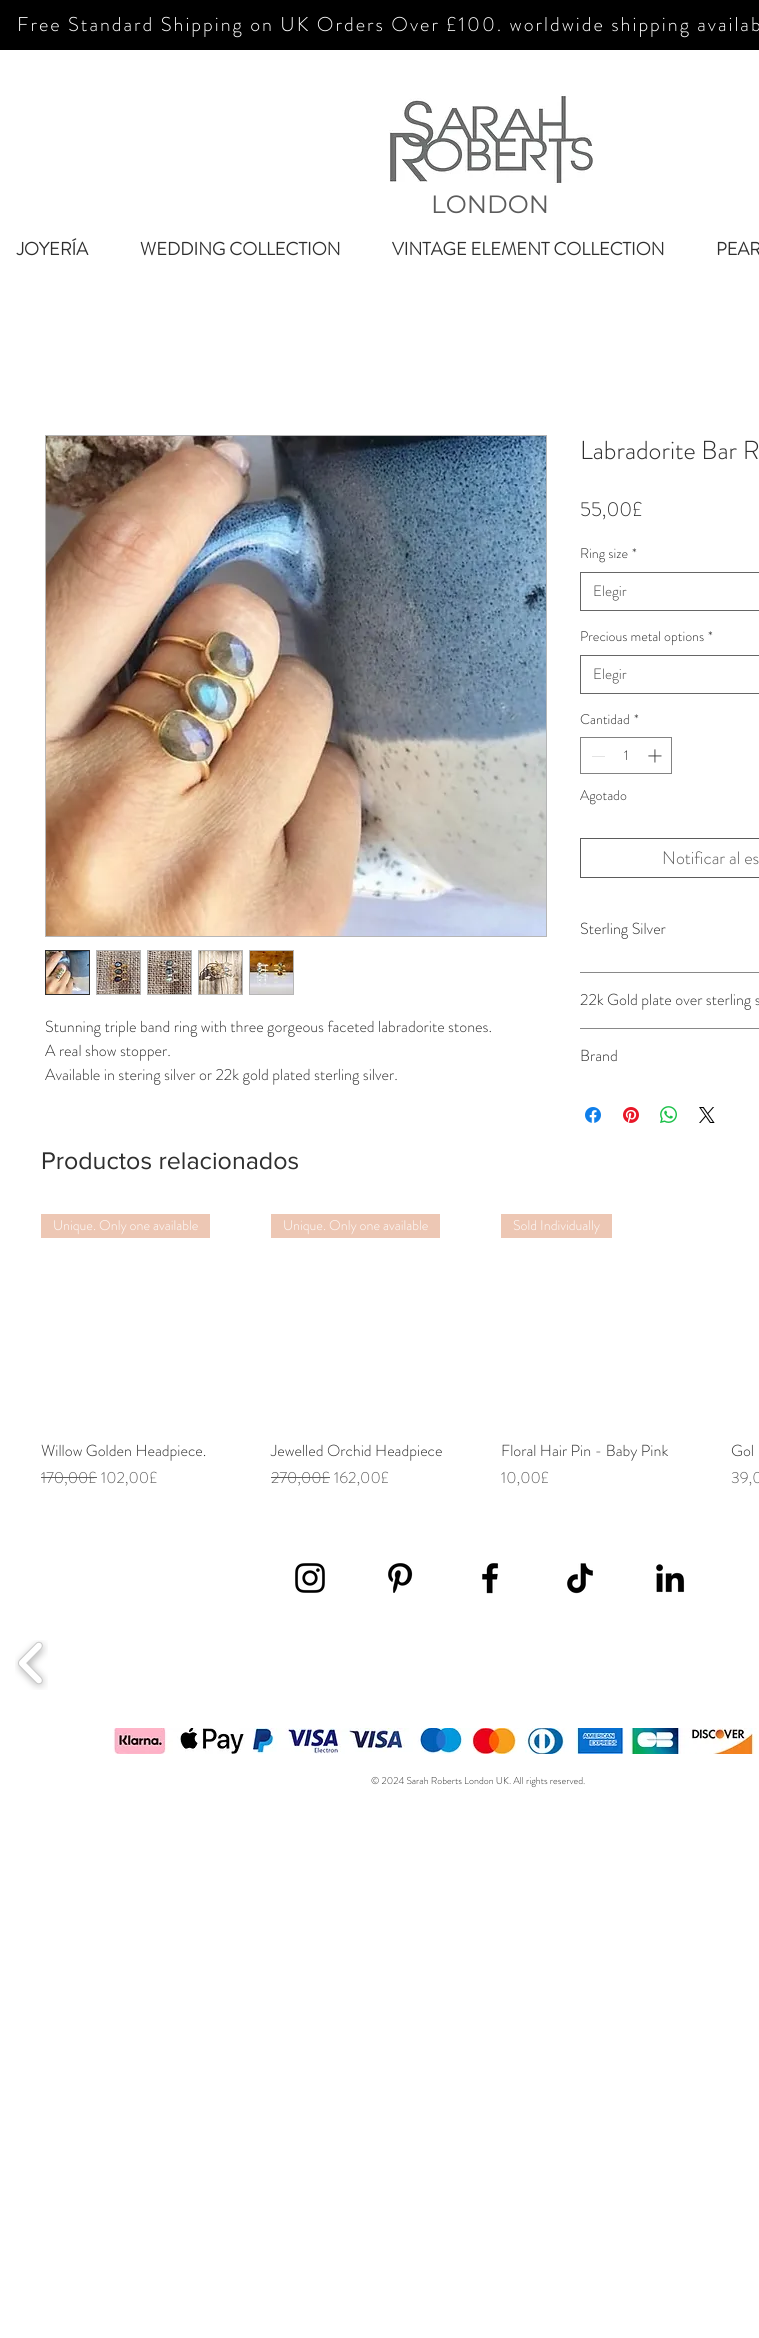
import math
import cairocffi as cairo

surface = cairo.ImageSurface(cairo.FORMAT_RGB24, 759, 2338)
ctx = cairo.Context(surface)
options = cairo.FontOptions()
options.set_hint_metrics(cairo.HINT_METRICS_OFF)
options.set_hint_style(cairo.HINT_STYLE_NONE)
ctx.set_font_options(options)
ctx.set_miter_limit(4)


def rgb(r, g, b):
    ctx.set_source_rgb(r / 255, g / 255, b / 255)


def face(family, size, italic, bold):
    ctx.select_font_face(family, cairo.FONT_SLANT_ITALIC if italic else cairo.FONT_SLANT_NORMAL, cairo.FONT_WEIGHT_BOLD if bold else cairo.FONT_WEIGHT_NORMAL)
    ctx.set_font_size(size)


def label(x, y, s):
    ctx.move_to(x, y)
    ctx.show_text(s)


def tracked(x, y, s, letter, word):
    ctx.move_to(x, y)
    for ch in s:
        ctx.show_text(ch)
        ctx.rel_move_to(letter + word * (ch == ' '), 0)


def rect(x, y, w, h):
    ctx.rectangle(x, y, w, h)
    ctx.fill()


def image(path, x, y, w, h):
    ctx.save()
    ctx.set_source_surface(cairo.ImageSurface.create_from_png(path), x, y)
    ctx.rectangle(x, y, w, h)
    ctx.fill()
    ctx.restore()


rgb(255, 255, 255)
ctx.paint()
rgb(0, 0, 0)
rect(0, 0, 759, 50)
face('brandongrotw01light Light', 20, 0, 0)
rgb(255, 255, 255)
tracked(17, 31, 'Free Standard Shipping on UK Orders Over £100. worldwide shipping availab', 2, 0)
image('image0.png', 389, 94, 204, 91)
face('Montserrat', 25, 0, 0)
rgb(91, 91, 91)
label(431, 213, 'LONDON')
face('brandongrotw01light', 18, 0, 1)
rgb(46, 46, 46)
label(17, 255, 'JOYERÍA')
label(140, 255, 'WEDDING COLLECTION')
label(392, 255, 'VINTAGE ELEMENT COLLECTION')
label(716, 255, 'PEAR')
ctx.rectangle(45.5, 435.5, 501, 501)
rgb(182, 182, 182)
ctx.set_line_width(1)
ctx.stroke()
image('image1.png', 46, 436, 500, 500)
ctx.rectangle(45.5, 950.5, 44, 44)
rgb(46, 46, 46)
ctx.stroke()
image('image2.png', 46, 951, 43, 43)
rgb(182, 182, 182)
rect(96, 950, 45, 45)
image('image3.png', 97, 951, 43, 43)
rect(147, 950, 45, 45)
image('image4.png', 148, 951, 43, 43)
rect(198, 950, 45, 45)
image('image5.png', 199, 951, 43, 43)
rect(249, 950, 45, 45)
image('image6.png', 250, 951, 43, 43)
face('brandongrotw01light Light', 16, 0, 0)
rgb(46, 46, 46)
label(45, 1032, 'Stunning triple band ring with three gorgeous faceted labradorite stones.')
label(45, 1056, 'A real show stopper.')
label(45, 1080, 'Available in stering silver or 22k gold plated sterling silver.')
face('brandongrotw01light Light', 26, 0, 0)
label(580, 459, 'Labradorite Bar R')
face('brandongrotw01light Light', 20, 0, 0)
label(580, 516, '55,00£')
face('brandongrotw01light Light', 14, 0, 0)
label(580, 558, 'Ring size')
label(632, 558, '*')
ctx.rectangle(580.5, 572.5, 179, 38)
rgb(102, 102, 102)
ctx.stroke()
face('brandongrotw01light Light', 15, 0, 0)
rgb(68, 68, 68)
label(593, 596, 'Elegir')
face('brandongrotw01light Light', 14, 0, 0)
rgb(46, 46, 46)
label(580, 641, 'Precious metal options')
label(708, 641, '*')
ctx.rectangle(580.5, 655.5, 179, 38)
rgb(102, 102, 102)
ctx.stroke()
face('brandongrotw01light Light', 15, 0, 0)
rgb(68, 68, 68)
label(593, 679, 'Elegir')
face('brandongrotw01light Light', 14, 0, 0)
rgb(46, 46, 46)
label(580, 724, 'Cantidad')
label(634, 724, '*')
ctx.rectangle(580.5, 737.5, 91, 36)
rgb(130, 130, 130)
ctx.stroke()
rgb(227, 227, 227)
rect(592, 756, 13, 1)
rgb(46, 46, 46)
label(624, 760, '1')
image('image7.png', 648, 749, 14, 14)
label(580, 800, 'Agotado')
ctx.rectangle(580.5, 838.5, 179, 39)
rgb(91, 91, 91)
ctx.stroke()
face('brandongrotw01light Light', 18, 0, 0)
label(662, 864, 'Notificar al es')
rgb(137, 137, 137)
rect(580, 972, 179, 1)
face('brandongrotw01light Light', 16, 0, 0)
rgb(46, 46, 46)
label(580, 934, 'Sterling Silver')
rgb(137, 137, 137)
rect(580, 1028, 179, 1)
rgb(46, 46, 46)
label(580, 1005, '22k Gold plate over sterling s')
label(580, 1061, 'Brand')
image('image8.png', 585, 1107, 16, 16)
image('image9.png', 623, 1107, 16, 16)
image('image10.png', 660, 1106, 17, 17)
image('image11.png', 699, 1107, 16, 16)
face('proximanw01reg', 25, 0, 0)
label(41, 1169, 'Productos relacionados')
rgb(237, 199, 180)
rect(41, 1214, 169, 24)
face('brandongrotw01light Light', 14, 0, 0)
rgb(255, 255, 255)
label(53, 1230, 'Unique. Only one available')
face('brandongrotw01light Light', 16, 0, 0)
rgb(46, 46, 46)
label(41, 1456, 'Willow Golden Headpiece.')
rgb(91, 91, 91)
label(41, 1483, '170,00£')
rect(41, 1477, 56, 1)
label(101, 1483, '102,00£')
rgb(237, 199, 180)
rect(271, 1214, 169, 24)
face('brandongrotw01light Light', 14, 0, 0)
rgb(255, 255, 255)
label(283, 1230, 'Unique. Only one available')
face('brandongrotw01light Light', 16, 0, 0)
rgb(46, 46, 46)
label(271, 1456, 'Jewelled Orchid Headpiece')
rgb(91, 91, 91)
label(271, 1483, '270,00£')
rect(271, 1477, 59, 1)
label(334, 1483, '162,00£')
rgb(237, 199, 180)
rect(501, 1214, 111, 24)
face('brandongrotw01light Light', 14, 0, 0)
rgb(255, 255, 255)
label(513, 1230, 'Sold Individually')
face('brandongrotw01light Light', 16, 0, 0)
rgb(46, 46, 46)
label(501, 1456, 'Floral Hair Pin - Baby Pink')
rgb(91, 91, 91)
label(501, 1483, '10,00£')
rgb(46, 46, 46)
label(731, 1456, 'Gol')
rgb(91, 91, 91)
label(731, 1483, '39,0')
image('image12.png', 295, 1563, 30, 30)
image('image13.png', 388, 1563, 25, 30)
image('image14.png', 482, 1563, 17, 31)
image('image15.png', 567, 1563, 26, 31)
image('image16.png', 656, 1564, 29, 29)
image('image17.png', 15, 1640, 33, 50)
image('image18.png', 113, 1728, 644, 26)
face('brandongrotw01light Light', 10, 0, 0)
rgb(46, 46, 46)
label(371, 1784, '© 2024 Sarah Roberts London UK. All rights reserved.')
surface.write_to_png('render.png')
